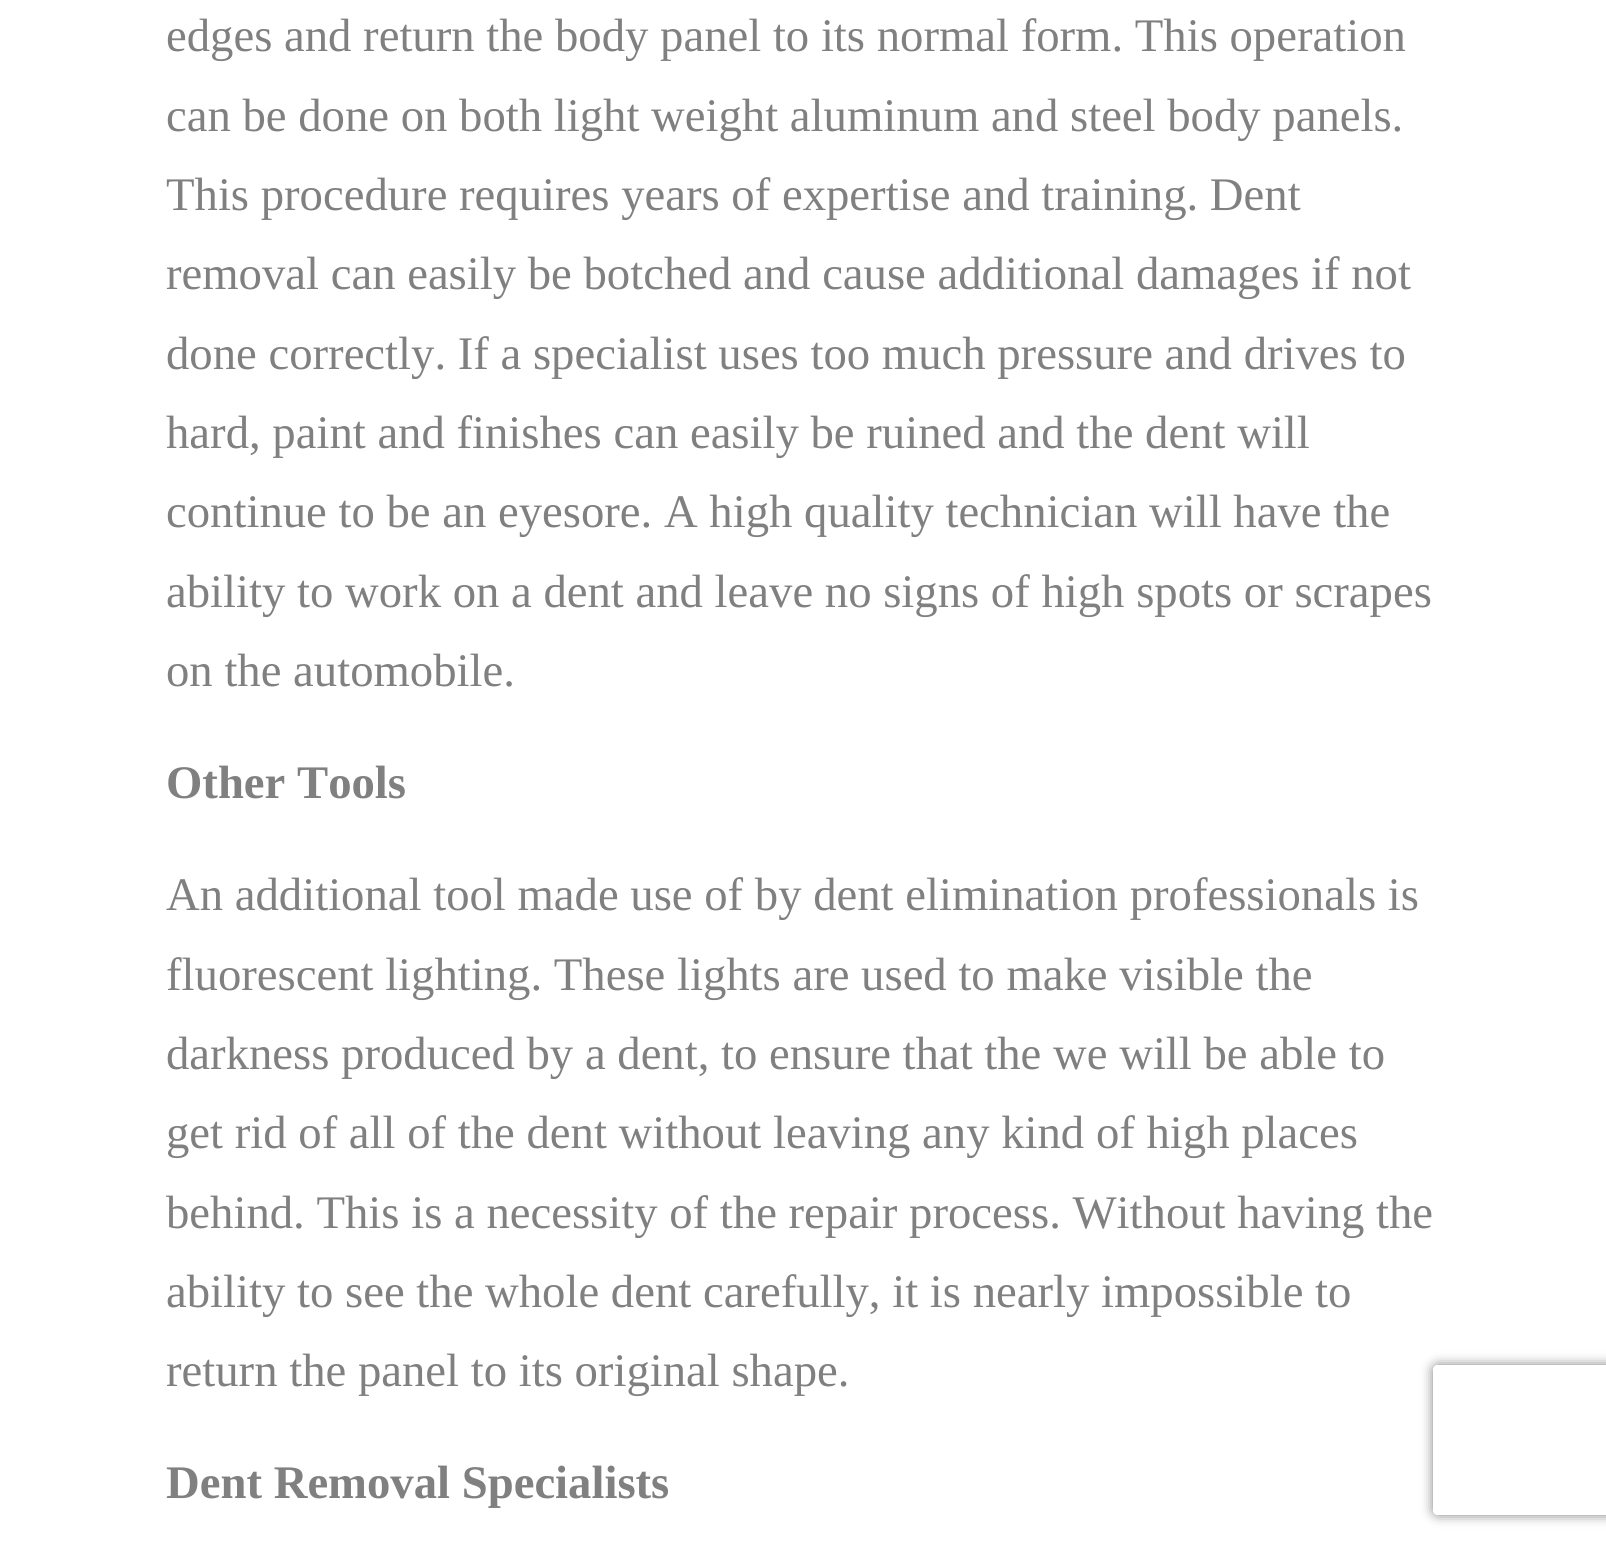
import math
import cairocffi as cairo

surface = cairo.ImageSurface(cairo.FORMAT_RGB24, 1606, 1548)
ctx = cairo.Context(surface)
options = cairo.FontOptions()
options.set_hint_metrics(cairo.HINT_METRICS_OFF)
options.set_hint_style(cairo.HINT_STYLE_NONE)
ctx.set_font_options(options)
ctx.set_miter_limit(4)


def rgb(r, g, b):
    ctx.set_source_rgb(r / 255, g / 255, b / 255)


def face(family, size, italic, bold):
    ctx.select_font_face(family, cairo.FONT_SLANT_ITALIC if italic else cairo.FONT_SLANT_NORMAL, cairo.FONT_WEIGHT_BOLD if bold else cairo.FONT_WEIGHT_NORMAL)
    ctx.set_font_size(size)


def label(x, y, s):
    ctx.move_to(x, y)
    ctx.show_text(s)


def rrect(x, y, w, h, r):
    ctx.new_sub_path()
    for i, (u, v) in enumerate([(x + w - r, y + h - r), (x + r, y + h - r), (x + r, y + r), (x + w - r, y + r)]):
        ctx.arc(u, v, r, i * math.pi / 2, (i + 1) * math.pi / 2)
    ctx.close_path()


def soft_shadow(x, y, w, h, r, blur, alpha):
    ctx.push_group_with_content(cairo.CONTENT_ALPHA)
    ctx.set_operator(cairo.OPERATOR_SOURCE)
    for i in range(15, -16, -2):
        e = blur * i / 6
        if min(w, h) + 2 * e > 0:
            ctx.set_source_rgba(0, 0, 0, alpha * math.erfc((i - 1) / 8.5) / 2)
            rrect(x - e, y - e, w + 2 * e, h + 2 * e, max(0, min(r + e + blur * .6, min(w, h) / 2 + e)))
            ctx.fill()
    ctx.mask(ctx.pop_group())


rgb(255, 255, 255)
ctx.paint()
face('Liberation Serif', 46.7, 0, 0)
rgb(128, 128, 128)
label(166, 51, 'edges and return the body panel to its normal form. This operation')
label(166, 131, 'can be done on both light weight aluminum and steel body panels.')
label(166, 210, 'This procedure requires years of expertise and training. Dent')
label(166, 289, 'removal can easily be botched and cause additional damages if not')
label(166, 369, 'done correctly. If a specialist uses too much pressure and drives to')
label(166, 448, 'hard, paint and finishes can easily be ruined and the dent will')
label(166, 527, 'continue to be an eyesore. A high quality technician will have the')
label(166, 607, 'ability to work on a dent and leave no signs of high spots or scrapes')
label(166, 686, 'on the automobile.')
face('Liberation Serif', 46.7, 0, 1)
label(166, 798, 'Other Tools')
face('Liberation Serif', 46.7, 0, 0)
label(166, 910, 'An additional tool made use of by dent elimination professionals is')
label(166, 990, 'fluorescent lighting. These lights are used to make visible the')
label(166, 1069, 'darkness produced by a dent, to ensure that the we will be able to')
label(166, 1148, 'get rid of all of the dent without leaving any kind of high places')
label(166, 1228, 'behind. This is a necessity of the repair process. Without having the')
label(166, 1307, 'ability to see the whole dent carefully, it is nearly impossible to')
label(166, 1386, 'return the panel to its original shape.')
face('Liberation Serif', 46.7, 0, 1)
label(166, 1498, 'Dent Removal Specialists')
ctx.save()
ctx.set_fill_rule(cairo.FILL_RULE_EVEN_ODD)
ctx.new_path()
ctx.move_to(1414, 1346)
ctx.line_to(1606, 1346)
ctx.line_to(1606, 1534)
ctx.line_to(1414, 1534)
ctx.close_path()
ctx.move_to(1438, 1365)
ctx.line_to(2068, 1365)
ctx.curve_to(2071, 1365, 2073, 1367, 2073, 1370)
ctx.line_to(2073, 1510)
ctx.curve_to(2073, 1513, 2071, 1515, 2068, 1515)
ctx.line_to(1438, 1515)
ctx.curve_to(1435, 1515, 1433, 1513, 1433, 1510)
ctx.line_to(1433, 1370)
ctx.curve_to(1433, 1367, 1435, 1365, 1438, 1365)
ctx.close_path()
ctx.clip()
rgb(128, 128, 128)
soft_shadow(1433, 1365, 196, 150, 5, 6, 1)
ctx.restore()
surface.write_to_png('render.png')
